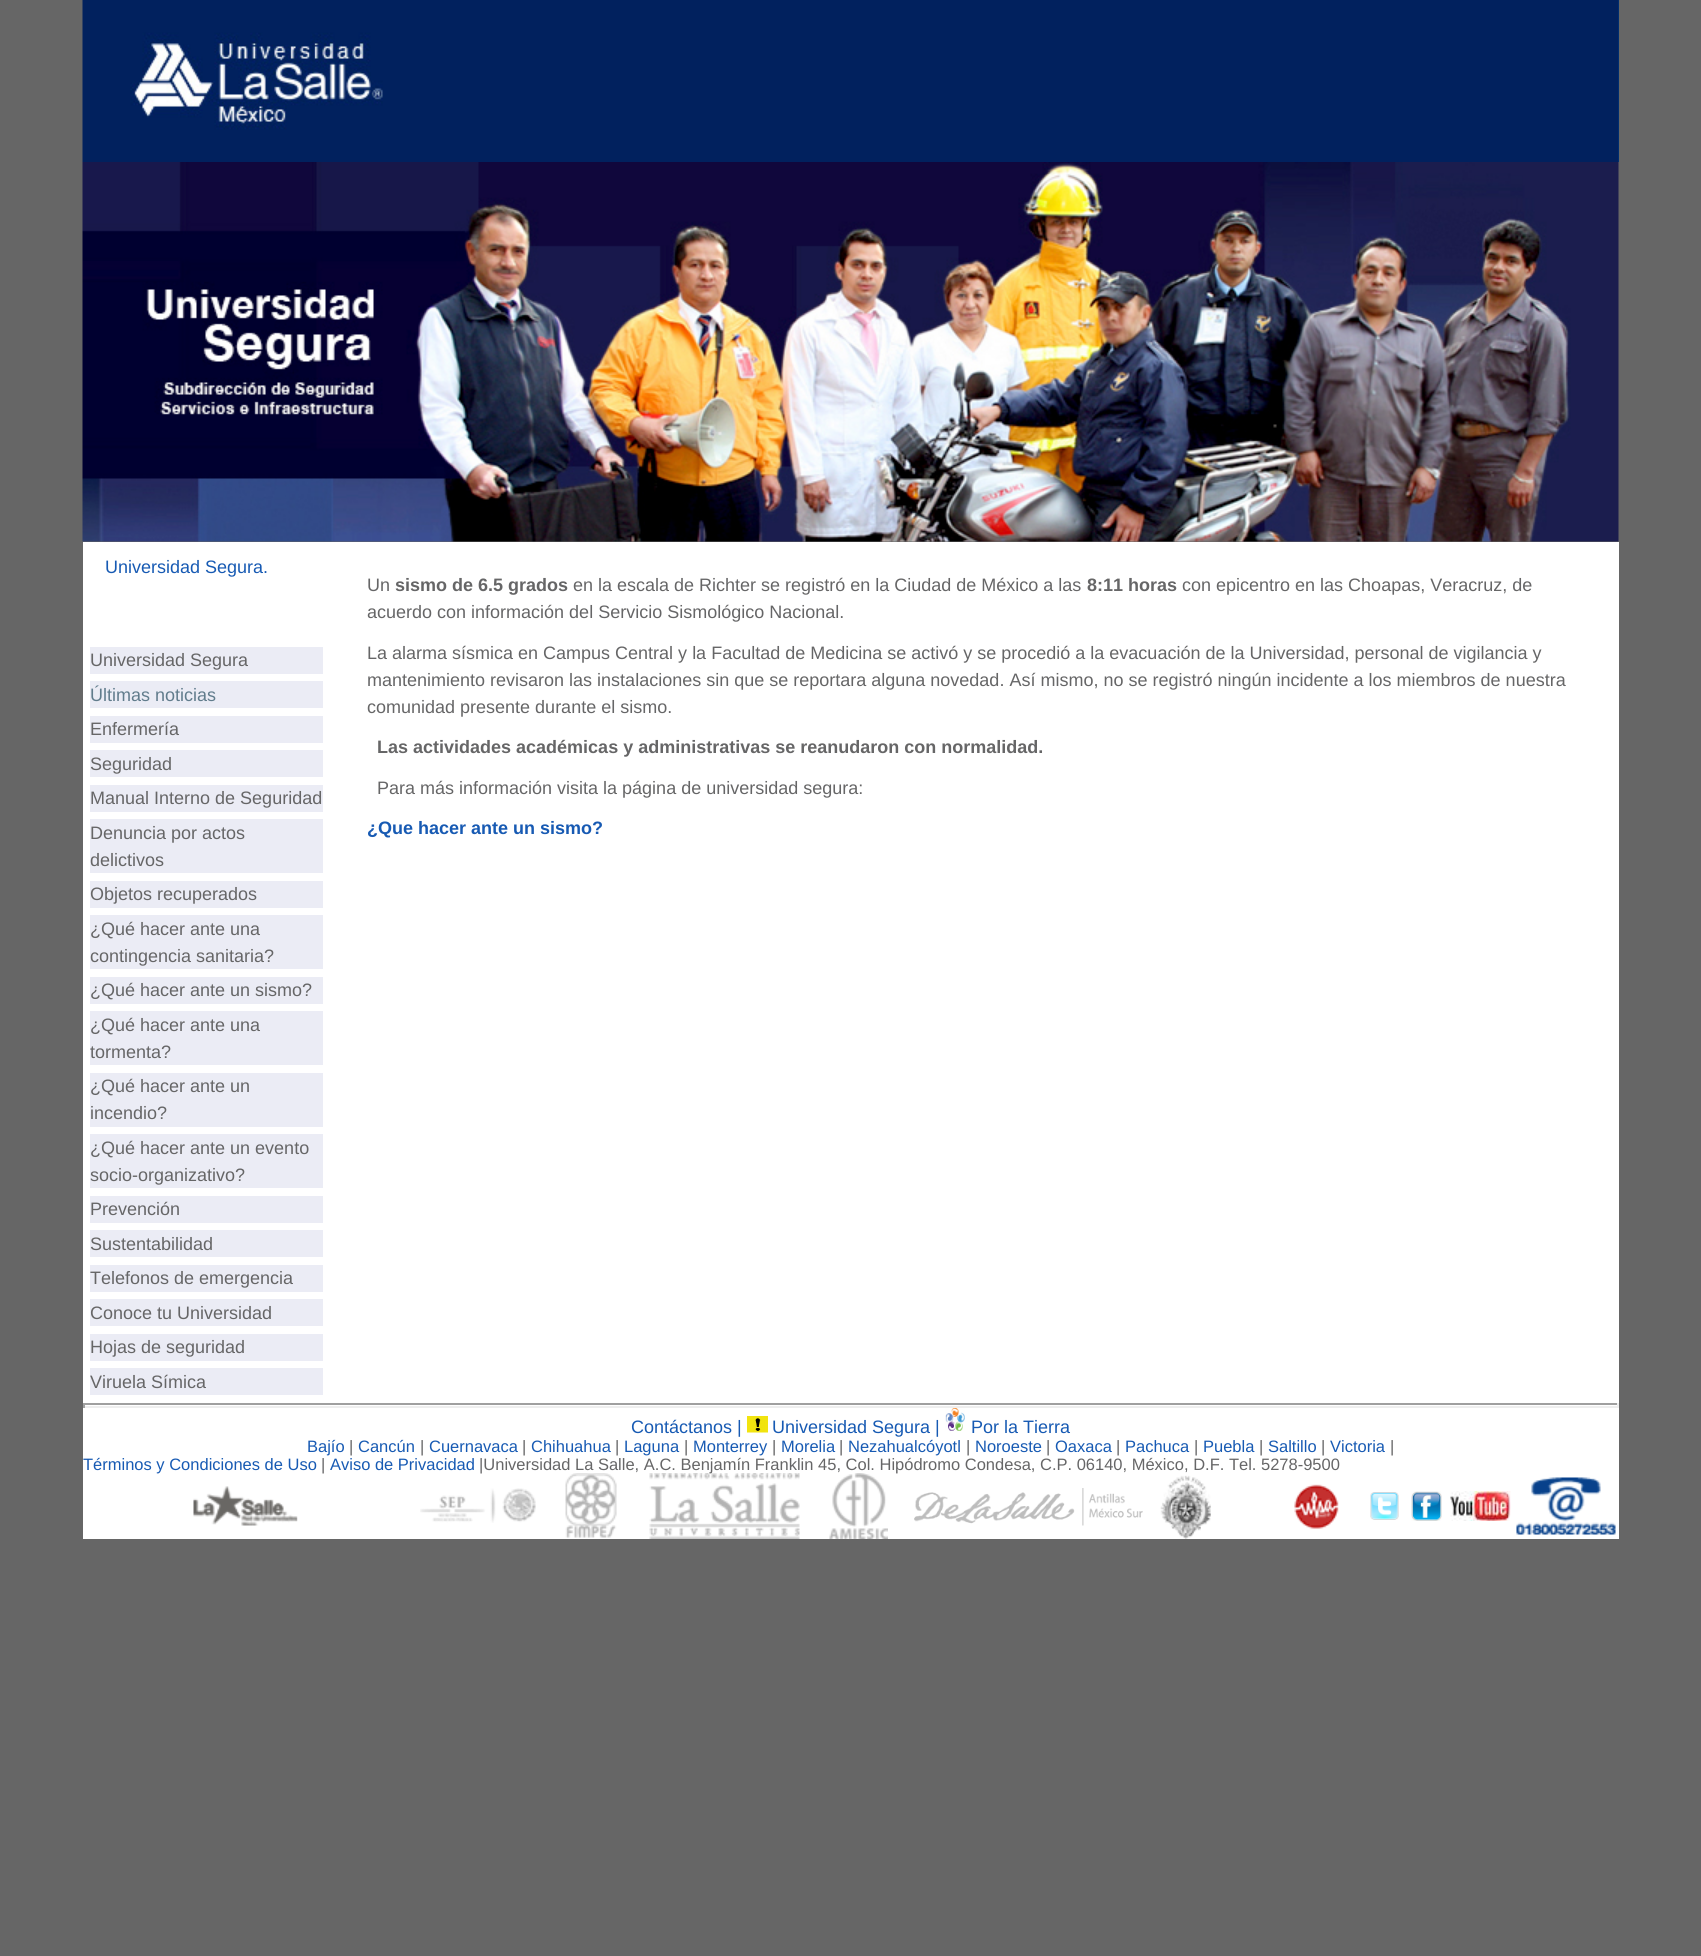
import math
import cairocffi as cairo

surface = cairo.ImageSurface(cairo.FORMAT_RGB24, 1701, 1956)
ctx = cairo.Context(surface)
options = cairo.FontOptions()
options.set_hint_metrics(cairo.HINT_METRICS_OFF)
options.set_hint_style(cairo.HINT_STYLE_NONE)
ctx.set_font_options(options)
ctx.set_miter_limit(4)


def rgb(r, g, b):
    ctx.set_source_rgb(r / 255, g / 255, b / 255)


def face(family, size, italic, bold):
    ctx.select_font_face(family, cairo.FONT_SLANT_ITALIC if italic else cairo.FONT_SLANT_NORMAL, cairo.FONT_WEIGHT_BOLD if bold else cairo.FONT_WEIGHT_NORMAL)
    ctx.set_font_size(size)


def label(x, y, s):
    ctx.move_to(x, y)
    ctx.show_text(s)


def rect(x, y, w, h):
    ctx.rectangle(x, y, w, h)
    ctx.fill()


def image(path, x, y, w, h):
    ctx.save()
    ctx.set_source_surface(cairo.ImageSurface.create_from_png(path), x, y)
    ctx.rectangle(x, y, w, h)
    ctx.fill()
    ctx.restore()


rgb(102, 102, 102)
ctx.paint()
rgb(1, 58, 129)
rect(1618, 0, 1, 162)
image('image0.png', 82, 0, 1537, 162)
image('image1.png', 82, 162, 1537, 380)
rgb(255, 255, 255)
rect(83, 542, 1536, 861)
face('Liberation Sans', 18, 0, 0)
rgb(23, 90, 179)
label(105, 573, 'Universidad Segura.')
rgb(235, 236, 245)
rect(90, 647, 233, 27)
rgb(102, 102, 103)
label(90, 666, 'Universidad Segura')
rgb(235, 236, 245)
rect(90, 681, 233, 27)
rgb(97, 124, 140)
label(90, 701, 'Últimas noticias')
rgb(235, 236, 245)
rect(90, 716, 233, 27)
rgb(102, 102, 103)
label(90, 735, 'Enfermería')
rgb(235, 236, 245)
rect(90, 750, 233, 27)
rgb(102, 102, 103)
label(90, 770, 'Seguridad')
rgb(235, 236, 245)
rect(90, 785, 233, 27)
rgb(102, 102, 103)
label(90, 804, 'Manual Interno de Seguridad')
rgb(235, 236, 245)
rect(90, 819, 233, 54)
rgb(102, 102, 103)
label(90, 839, 'Denuncia por actos')
label(90, 866, 'delictivos')
rgb(235, 236, 245)
rect(90, 881, 233, 27)
rgb(102, 102, 103)
label(90, 900, 'Objetos recuperados')
rgb(235, 236, 245)
rect(90, 915, 233, 54)
rgb(102, 102, 103)
label(90, 935, '¿Qué hacer ante una')
label(90, 962, 'contingencia sanitaria?')
rgb(235, 236, 245)
rect(90, 977, 233, 27)
rgb(102, 102, 103)
label(90, 996, '¿Qué hacer ante un sismo?')
rgb(235, 236, 245)
rect(90, 1011, 233, 54)
rgb(102, 102, 103)
label(90, 1031, '¿Qué hacer ante una')
label(90, 1058, 'tormenta?')
rgb(235, 236, 245)
rect(90, 1073, 233, 54)
rgb(102, 102, 103)
label(90, 1092, '¿Qué hacer ante un')
label(90, 1119, 'incendio?')
rgb(235, 236, 245)
rect(90, 1134, 233, 54)
rgb(102, 102, 103)
label(90, 1154, '¿Qué hacer ante un evento')
label(90, 1181, 'socio-organizativo?')
rgb(235, 236, 245)
rect(90, 1196, 233, 27)
rgb(102, 102, 103)
label(90, 1215, 'Prevención')
rgb(235, 236, 245)
rect(90, 1230, 233, 27)
rgb(102, 102, 103)
label(90, 1250, 'Sustentabilidad')
rgb(235, 236, 245)
rect(90, 1265, 233, 27)
rgb(102, 102, 103)
label(90, 1284, 'Telefonos de emergencia')
rgb(235, 236, 245)
rect(90, 1299, 233, 27)
rgb(102, 102, 103)
label(90, 1319, 'Conoce tu Universidad')
rgb(235, 236, 245)
rect(90, 1334, 233, 27)
rgb(102, 102, 103)
label(90, 1353, 'Hojas de seguridad')
rgb(235, 236, 245)
rect(90, 1368, 233, 27)
rgb(102, 102, 103)
label(90, 1388, 'Viruela Símica')
label(367, 591, 'Un')
face('Liberation Sans', 18, 0, 1)
label(395, 591, 'sismo de 6.5 grados')
face('Liberation Sans', 18, 0, 0)
label(573, 591, 'en la escala de Richter se registró en la Ciudad de México a las')
face('Liberation Sans', 18, 0, 1)
label(1087, 591, '8:11 horas')
face('Liberation Sans', 18, 0, 0)
label(1182, 591, 'con epicentro en las Choapas, Veracruz, de')
label(367, 618, 'acuerdo con información del Servicio Sismológico Nacional.')
label(367, 659, 'La alarma sísmica en Campus Central y la Facultad de Medicina se activó y se procedió a la evacuación de la Universidad, personal de vigilancia y')
label(367, 686, 'mantenimiento revisaron las instalaciones sin que se reportara alguna novedad. Así mismo, no se registró ningún incidente a los miembros de nuestra')
label(367, 713, 'comunidad presente durante el sismo.')
face('Liberation Sans', 18, 0, 1)
label(377, 753, 'Las actividades académicas y administrativas se reanudaron con normalidad.')
face('Liberation Sans', 18, 0, 0)
label(377, 794, 'Para más información visita la página de universidad segura:')
face('Liberation Sans', 18, 0, 1)
rgb(23, 90, 179)
label(367, 834, '¿Que hacer ante un sismo?')
rgb(255, 255, 255)
rect(83, 1405, 1536, 134)
rgb(159, 159, 159)
rect(83, 1403, 1536, 2)
rgb(238, 238, 238)
rect(1617, 1403, 2, 5)
rect(83, 1406, 1536, 2)
rgb(159, 159, 159)
rect(83, 1403, 2, 5)
face('Liberation Sans', 18, 0, 0)
rgb(23, 90, 179)
label(631, 1433, 'Contáctanos |')
image('image2.png', 747, 1416, 21, 17)
label(772, 1433, 'Universidad Segura |')
image('image3.png', 945, 1408, 20, 23)
label(971, 1433, 'Por la Tierra')
face('Liberation Sans', 16.5, 0, 0)
label(307, 1452, 'Bajío')
rgb(102, 102, 103)
label(349, 1452, '|')
rgb(23, 90, 179)
label(358, 1452, 'Cancún')
rgb(102, 102, 103)
label(420, 1452, '|')
rgb(23, 90, 179)
label(429, 1452, 'Cuernavaca')
rgb(102, 102, 103)
label(522, 1452, '|')
rgb(23, 90, 179)
label(531, 1452, 'Chihuahua')
rgb(102, 102, 103)
label(615, 1452, '|')
rgb(23, 90, 179)
label(624, 1452, 'Laguna')
rgb(102, 102, 103)
label(684, 1452, '|')
rgb(23, 90, 179)
label(693, 1452, 'Monterrey')
rgb(102, 102, 103)
label(772, 1452, '|')
rgb(23, 90, 179)
label(781, 1452, 'Morelia')
rgb(102, 102, 103)
label(839, 1452, '|')
rgb(23, 90, 179)
label(848, 1452, 'Nezahualcóyotl')
rgb(102, 102, 103)
label(966, 1452, '|')
rgb(23, 90, 179)
label(975, 1452, 'Noroeste')
rgb(102, 102, 103)
label(1046, 1452, '|')
rgb(23, 90, 179)
label(1055, 1452, 'Oaxaca')
rgb(102, 102, 103)
label(1116, 1452, '|')
rgb(23, 90, 179)
label(1125, 1452, 'Pachuca')
rgb(102, 102, 103)
label(1194, 1452, '|')
rgb(23, 90, 179)
label(1203, 1452, 'Puebla')
rgb(102, 102, 103)
label(1259, 1452, '|')
rgb(23, 90, 179)
label(1268, 1452, 'Saltillo')
rgb(102, 102, 103)
label(1321, 1452, '|')
rgb(23, 90, 179)
label(1330, 1452, 'Victoria')
rgb(102, 102, 103)
label(1390, 1452, '|')
rgb(23, 90, 179)
label(83, 1470, 'Términos y Condiciones de Uso')
rgb(102, 102, 103)
label(321, 1470, '|')
rgb(23, 90, 179)
label(330, 1470, 'Aviso de Privacidad')
rgb(102, 102, 103)
label(479, 1470, '|Universidad La Salle, A.C. Benjamín Franklin 45, Col. Hipódromo Condesa, C.P. 06140, México, D.F. Tel. 5278-9500')
image('image4.png', 193, 1486, 105, 40)
image('image5.png', 420, 1488, 116, 35)
image('image6.png', 565, 1473, 52, 65)
image('image7.png', 649, 1473, 151, 66)
image('image8.png', 829, 1473, 59, 66)
image('image9.png', 914, 1488, 229, 38)
image('image10.png', 1160, 1475, 51, 64)
image('image11.png', 1294, 1484, 45, 45)
image('image12.png', 1370, 1492, 29, 28)
image('image13.png', 1411, 1491, 31, 30)
image('image14.png', 1450, 1491, 61, 30)
image('image15.png', 1516, 1477, 100, 58)
surface.write_to_png('render.png')
